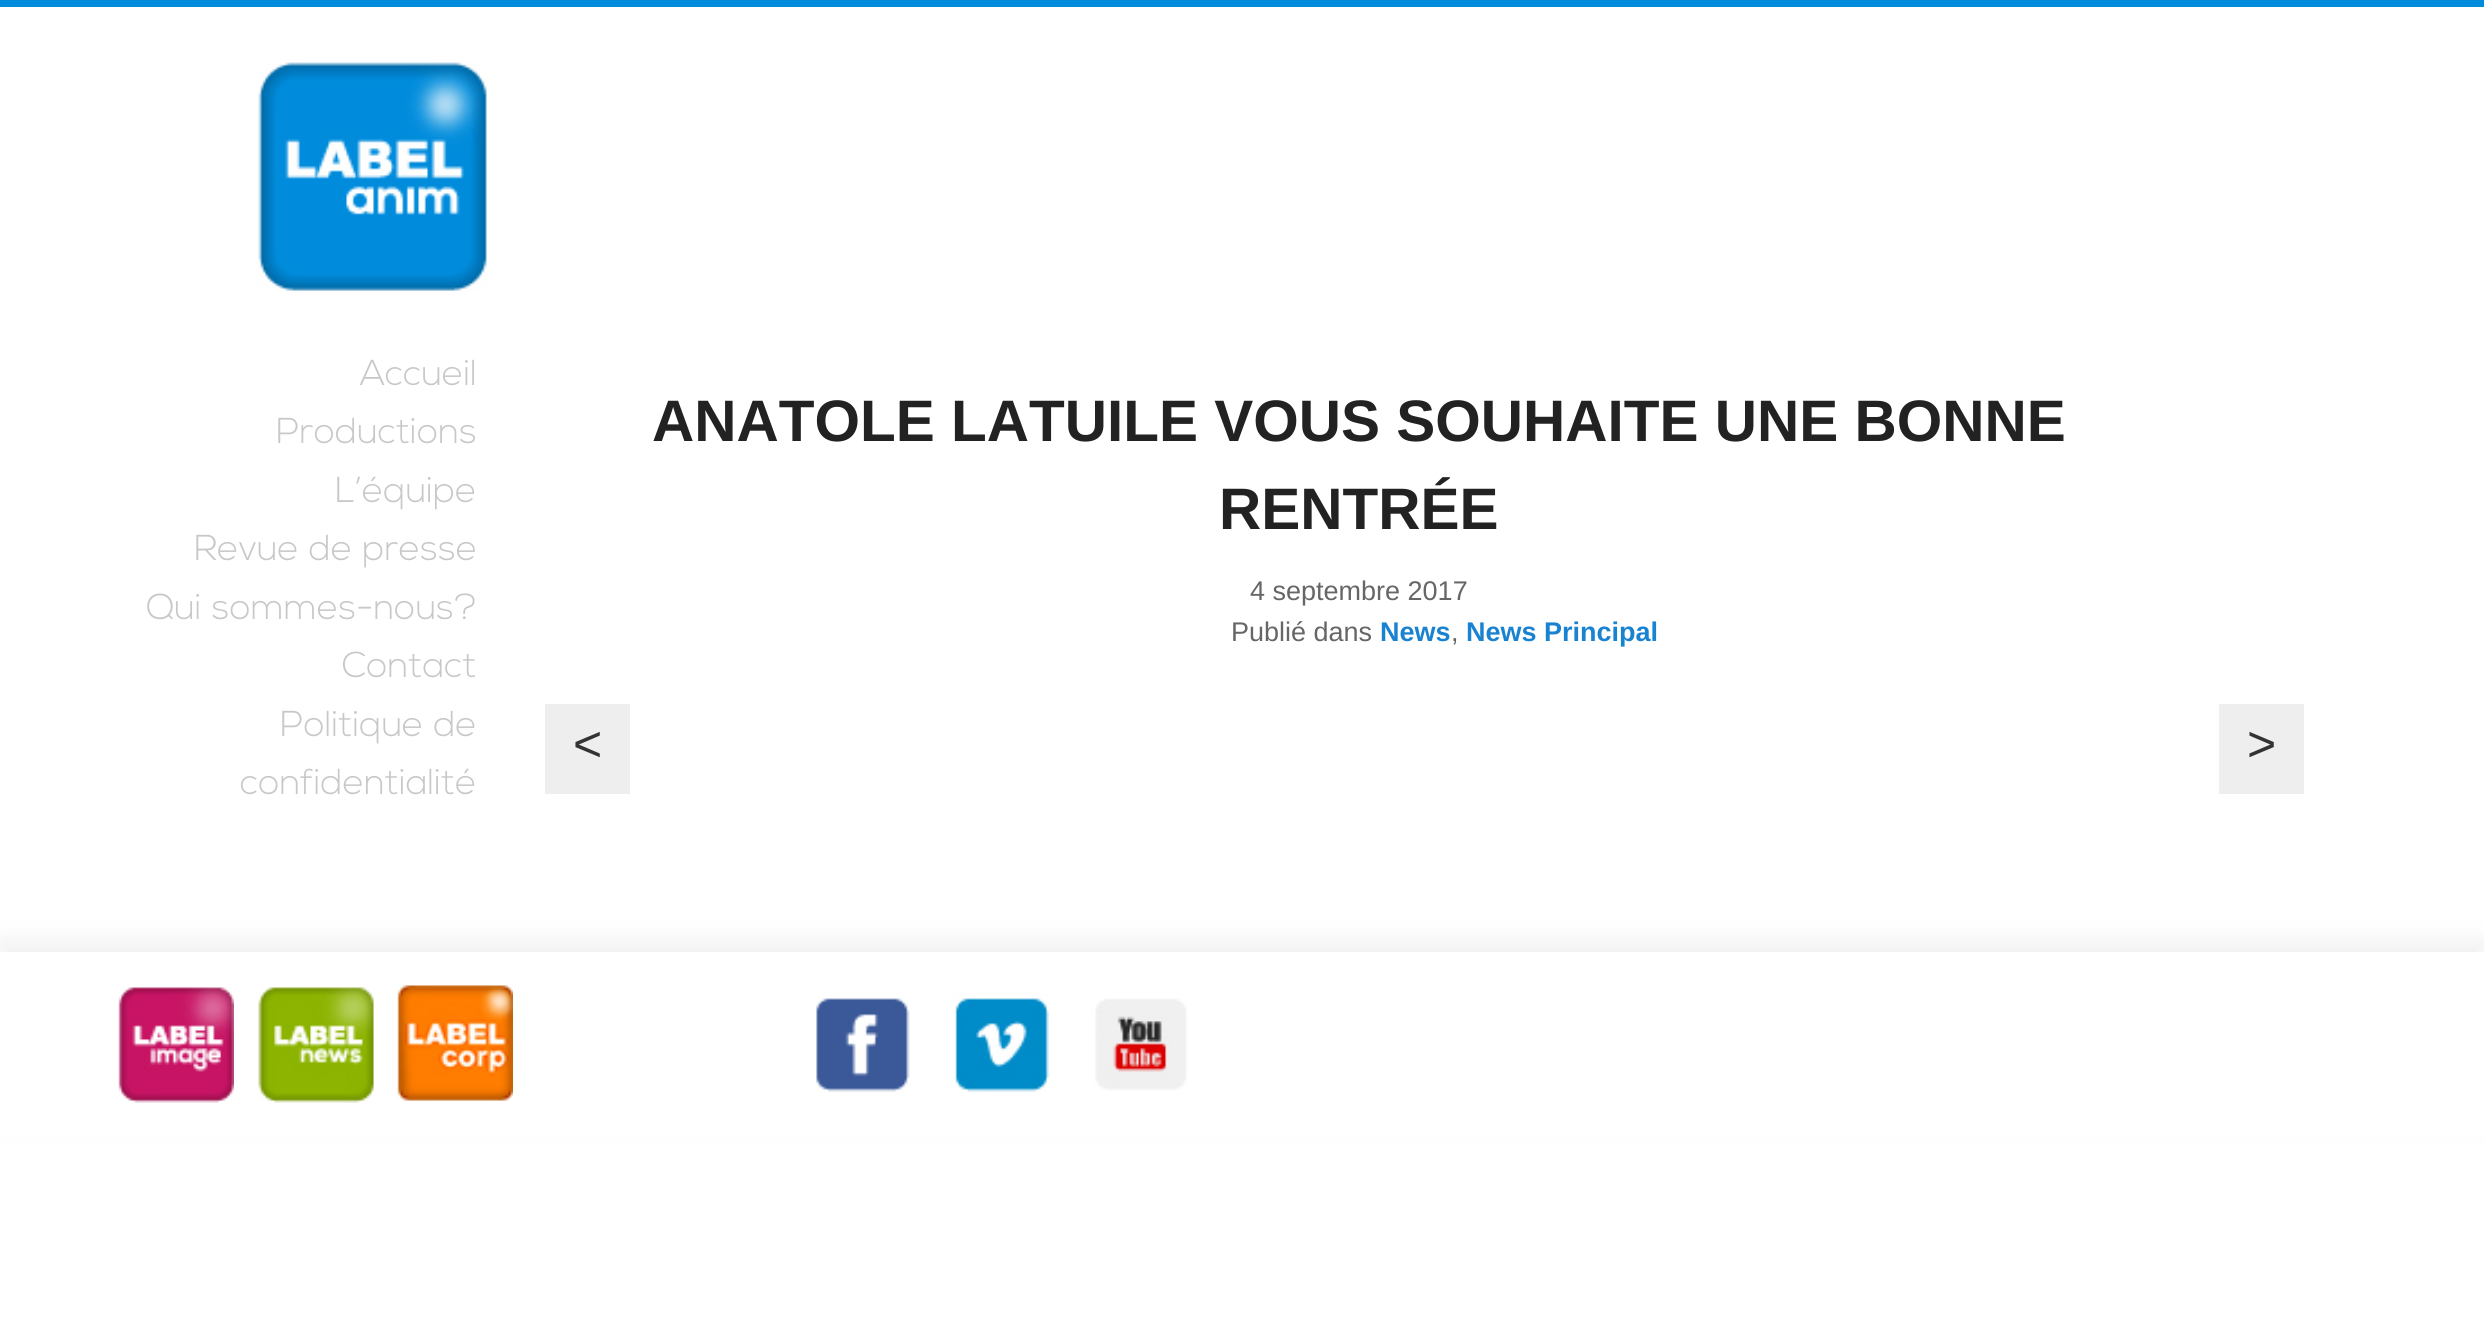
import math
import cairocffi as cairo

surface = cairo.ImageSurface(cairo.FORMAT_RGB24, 2484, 1343)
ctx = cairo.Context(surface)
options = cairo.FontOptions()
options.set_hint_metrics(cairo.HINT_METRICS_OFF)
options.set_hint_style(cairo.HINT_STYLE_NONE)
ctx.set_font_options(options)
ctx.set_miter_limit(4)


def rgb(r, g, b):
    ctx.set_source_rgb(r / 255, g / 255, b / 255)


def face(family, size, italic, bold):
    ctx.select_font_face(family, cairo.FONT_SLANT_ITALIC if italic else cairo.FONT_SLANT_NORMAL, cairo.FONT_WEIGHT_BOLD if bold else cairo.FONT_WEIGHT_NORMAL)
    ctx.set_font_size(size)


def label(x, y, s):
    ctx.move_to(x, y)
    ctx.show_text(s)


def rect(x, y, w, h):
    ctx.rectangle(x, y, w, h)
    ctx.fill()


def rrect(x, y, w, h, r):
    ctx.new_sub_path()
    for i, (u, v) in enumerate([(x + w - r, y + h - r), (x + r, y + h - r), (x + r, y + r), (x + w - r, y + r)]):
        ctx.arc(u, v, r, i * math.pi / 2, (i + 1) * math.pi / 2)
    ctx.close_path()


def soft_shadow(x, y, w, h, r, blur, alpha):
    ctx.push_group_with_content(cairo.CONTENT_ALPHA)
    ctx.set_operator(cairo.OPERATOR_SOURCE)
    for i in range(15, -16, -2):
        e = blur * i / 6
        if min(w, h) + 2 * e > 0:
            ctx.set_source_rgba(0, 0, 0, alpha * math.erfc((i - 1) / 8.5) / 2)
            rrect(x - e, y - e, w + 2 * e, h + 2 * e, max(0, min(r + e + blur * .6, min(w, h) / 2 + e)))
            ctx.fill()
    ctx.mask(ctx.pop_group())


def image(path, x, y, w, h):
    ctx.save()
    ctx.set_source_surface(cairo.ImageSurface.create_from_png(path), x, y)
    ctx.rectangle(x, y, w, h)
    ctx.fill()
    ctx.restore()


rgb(255, 255, 255)
ctx.paint()
rgb(0, 140, 220)
rect(0, 0, 2484, 7)
image('image0.png', 258, 62, 229, 229)
face('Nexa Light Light', 36, 0, 0)
rgb(200, 200, 200)
label(360, 385, 'Accueil')
label(276, 443, 'Productions')
label(335, 502, 'L’équipe')
label(194, 560, 'Revue de presse')
label(146, 619, 'Qui sommes-nous?')
label(342, 677, 'Contact')
label(280, 736, 'Politique de')
label(240, 794, 'confidentialité')
face('Liberation Sans', 58.5, 0, 1)
rgb(34, 34, 34)
label(652, 441, 'ANATOLE LATUILE VOUS SOUHAITE UNE BONNE')
label(1219, 529, 'RENTRÉE')
face('Liberation Sans', 27, 0, 0)
rgb(102, 102, 102)
label(1250, 600, '4 septembre 2017')
label(1231, 641, 'Publié dans')
face('Liberation Sans', 27, 0, 1)
rgb(25, 130, 209)
label(1380, 641, 'News')
face('Liberation Sans', 27, 0, 0)
rgb(102, 102, 102)
label(1451, 641, ',')
face('Liberation Sans', 27, 0, 1)
rgb(25, 130, 209)
label(1466, 641, 'News Principal')
rgb(238, 238, 238)
rect(545, 704, 85, 90)
face('Liberation Sans', 50, 0, 0)
rgb(51, 51, 51)
label(573, 761, '<')
rgb(238, 238, 238)
rect(2219, 704, 85, 90)
rgb(51, 51, 51)
label(2247, 761, '>')
ctx.save()
ctx.set_fill_rule(cairo.FILL_RULE_EVEN_ODD)
ctx.new_path()
ctx.move_to(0, 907)
ctx.line_to(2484, 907)
ctx.line_to(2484, 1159)
ctx.line_to(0, 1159)
ctx.close_path()
ctx.move_to(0, 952)
ctx.line_to(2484, 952)
ctx.line_to(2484, 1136)
ctx.line_to(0, 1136)
ctx.close_path()
ctx.clip()
rgb(240, 240, 240)
soft_shadow(0, 941, 2484, 184, 0, 11, 1)
ctx.restore()
image('image1.png', 118, 987, 116, 116)
image('image2.png', 258, 986, 116, 117)
image('image3.png', 397, 985, 116, 116)
image('image4.png', 816, 998, 94, 94)
image('image5.png', 952, 993, 98, 99)
image('image6.png', 1095, 998, 92, 93)
surface.write_to_png('render.png')
